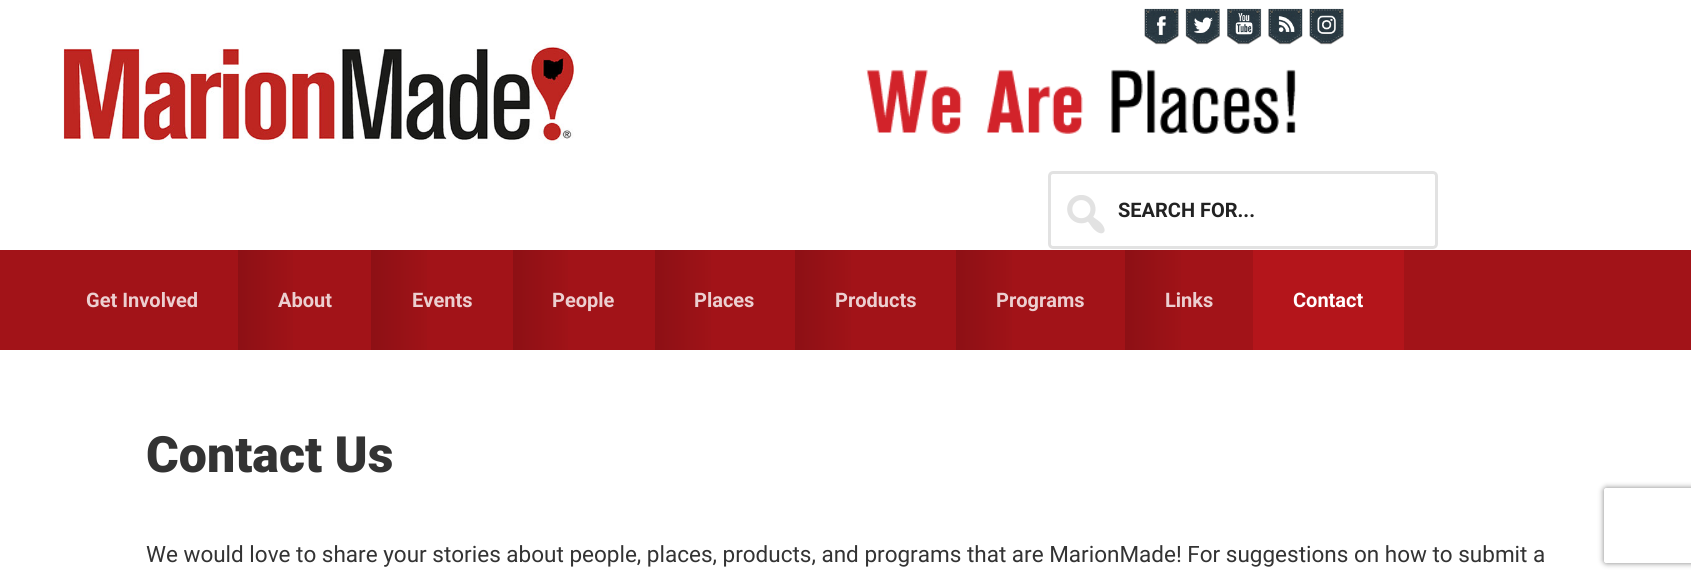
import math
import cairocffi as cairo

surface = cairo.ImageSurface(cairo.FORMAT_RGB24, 1691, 580)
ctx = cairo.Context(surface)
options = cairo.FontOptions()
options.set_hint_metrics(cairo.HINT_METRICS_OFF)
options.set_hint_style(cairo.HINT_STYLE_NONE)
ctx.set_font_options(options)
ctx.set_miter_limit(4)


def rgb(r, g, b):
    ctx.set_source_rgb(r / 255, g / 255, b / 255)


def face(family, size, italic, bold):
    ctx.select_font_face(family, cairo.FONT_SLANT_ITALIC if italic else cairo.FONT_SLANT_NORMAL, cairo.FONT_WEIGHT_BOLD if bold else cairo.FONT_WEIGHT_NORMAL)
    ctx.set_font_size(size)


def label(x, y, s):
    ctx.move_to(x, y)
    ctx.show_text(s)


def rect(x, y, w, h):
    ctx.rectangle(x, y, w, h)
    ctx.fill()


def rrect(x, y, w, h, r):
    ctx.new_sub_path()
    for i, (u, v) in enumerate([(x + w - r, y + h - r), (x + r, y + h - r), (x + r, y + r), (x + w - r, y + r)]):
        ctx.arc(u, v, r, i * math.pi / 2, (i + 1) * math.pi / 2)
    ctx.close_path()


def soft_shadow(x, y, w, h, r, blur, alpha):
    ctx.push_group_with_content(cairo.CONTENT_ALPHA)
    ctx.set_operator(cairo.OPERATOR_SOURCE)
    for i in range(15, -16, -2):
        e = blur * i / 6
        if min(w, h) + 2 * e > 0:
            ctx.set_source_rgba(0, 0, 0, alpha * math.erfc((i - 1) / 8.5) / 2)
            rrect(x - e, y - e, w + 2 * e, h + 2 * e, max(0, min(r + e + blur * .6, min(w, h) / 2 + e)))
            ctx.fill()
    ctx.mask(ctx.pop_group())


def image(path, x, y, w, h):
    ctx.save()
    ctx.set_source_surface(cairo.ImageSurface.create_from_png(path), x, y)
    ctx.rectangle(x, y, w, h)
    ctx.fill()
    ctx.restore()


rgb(255, 255, 255)
ctx.paint()
image('image0.png', 63, 44, 511, 100)
image('image1.png', 1144, 8, 35, 37)
image('image2.png', 1185, 8, 35, 37)
image('image3.png', 1227, 8, 35, 37)
image('image4.png', 1268, 8, 35, 37)
image('image5.png', 1309, 8, 35, 37)
image('image6.png', 866, 69, 430, 65)
rrect(1049.5, 172.5, 387, 75, 3.5)
rgb(226, 226, 226)
ctx.set_line_width(3)
ctx.stroke()
image('image7.png', 1067, 195, 38, 39)
face('Roboto', 20, 0, 1)
rgb(34, 34, 34)
label(1118, 217, 'SEARCH FOR...')
rgb(162, 19, 24)
rect(0, 250, 1691, 100)
rgb(236, 207, 208)
label(86, 307, 'Get Involved')
gradient = cairo.LinearGradient(238, 300, 300, 300)
gradient.add_color_stop_rgba(0, 0.553, 0.063, 0.082, 1)
gradient.add_color_stop_rgba(1, 0.635, 0.075, 0.094, 1)
ctx.set_source(gradient)
rect(238, 250, 55, 100)
rgb(236, 207, 208)
label(278, 307, 'About')
gradient = cairo.LinearGradient(371, 300, 434, 300)
gradient.add_color_stop_rgba(0, 0.553, 0.063, 0.082, 1)
gradient.add_color_stop_rgba(1, 0.635, 0.075, 0.094, 1)
ctx.set_source(gradient)
rect(371, 250, 56, 100)
rgb(236, 207, 208)
label(412, 307, 'Events')
gradient = cairo.LinearGradient(513, 300, 575, 300)
gradient.add_color_stop_rgba(0, 0.553, 0.063, 0.082, 1)
gradient.add_color_stop_rgba(1, 0.635, 0.075, 0.094, 1)
ctx.set_source(gradient)
rect(513, 250, 55, 100)
rgb(236, 207, 208)
label(552, 307, 'People')
gradient = cairo.LinearGradient(655, 300, 718, 300)
gradient.add_color_stop_rgba(0, 0.553, 0.063, 0.082, 1)
gradient.add_color_stop_rgba(1, 0.635, 0.075, 0.094, 1)
ctx.set_source(gradient)
rect(655, 250, 56, 100)
rgb(236, 207, 208)
label(694, 307, 'Places')
gradient = cairo.LinearGradient(795, 300, 858, 300)
gradient.add_color_stop_rgba(0, 0.553, 0.063, 0.082, 1)
gradient.add_color_stop_rgba(1, 0.635, 0.075, 0.094, 1)
ctx.set_source(gradient)
rect(795, 250, 56, 100)
rgb(236, 207, 208)
label(835, 307, 'Products')
gradient = cairo.LinearGradient(956, 300, 1019, 300)
gradient.add_color_stop_rgba(0, 0.553, 0.063, 0.082, 1)
gradient.add_color_stop_rgba(1, 0.635, 0.075, 0.094, 1)
ctx.set_source(gradient)
rect(956, 250, 56, 100)
rgb(236, 207, 208)
label(996, 307, 'Programs')
gradient = cairo.LinearGradient(1125, 300, 1188, 300)
gradient.add_color_stop_rgba(0, 0.553, 0.063, 0.082, 1)
gradient.add_color_stop_rgba(1, 0.635, 0.075, 0.094, 1)
ctx.set_source(gradient)
rect(1125, 250, 56, 100)
rgb(236, 207, 208)
label(1165, 307, 'Links')
rgb(180, 21, 27)
rect(1253, 250, 151, 100)
rgb(255, 254, 254)
label(1293, 307, 'Contact')
face('Roboto Black', 50, 0, 0)
rgb(51, 51, 51)
label(146, 472, 'Contact Us')
face('Roboto', 22.5, 0, 0)
label(146, 562, 'We would love to share your stories about people, places, products, and programs that are MarionMade! For suggestions on how to submit a')
ctx.save()
ctx.set_fill_rule(cairo.FILL_RULE_EVEN_ODD)
ctx.new_path()
ctx.move_to(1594, 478)
ctx.line_to(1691, 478)
ctx.line_to(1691, 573)
ctx.line_to(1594, 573)
ctx.close_path()
ctx.move_to(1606.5, 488)
ctx.line_to(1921.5, 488)
ctx.curve_to(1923, 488, 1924, 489, 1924, 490.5)
ctx.line_to(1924, 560.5)
ctx.curve_to(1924, 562, 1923, 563, 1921.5, 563)
ctx.line_to(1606.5, 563)
ctx.curve_to(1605, 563, 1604, 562, 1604, 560.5)
ctx.line_to(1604, 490.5)
ctx.curve_to(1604, 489, 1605, 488, 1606.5, 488)
ctx.close_path()
ctx.clip()
rgb(128, 128, 128)
soft_shadow(1604, 488, 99, 75, 2.5, 3, 1)
ctx.restore()
surface.write_to_png('render.png')
